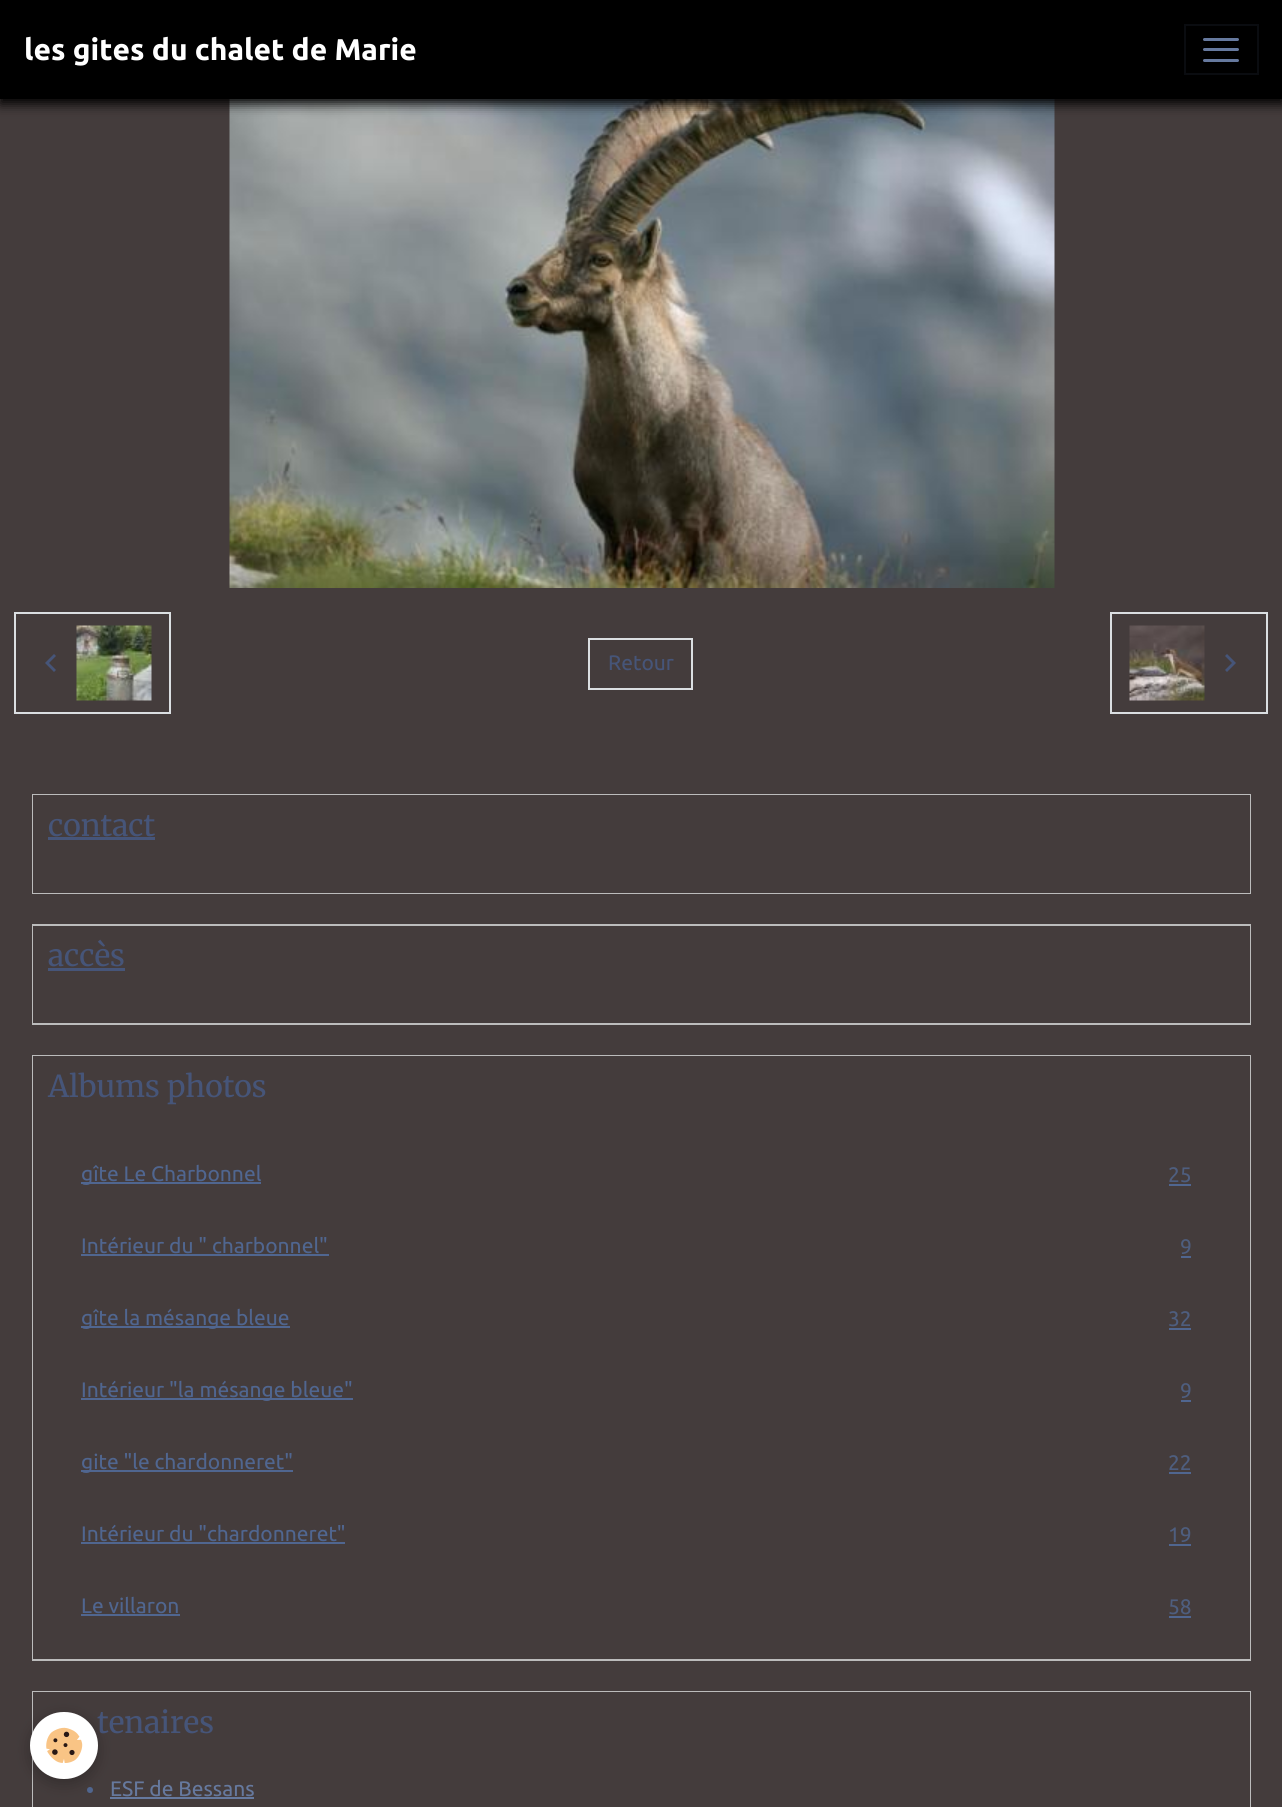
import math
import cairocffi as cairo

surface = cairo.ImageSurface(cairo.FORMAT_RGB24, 1282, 1807)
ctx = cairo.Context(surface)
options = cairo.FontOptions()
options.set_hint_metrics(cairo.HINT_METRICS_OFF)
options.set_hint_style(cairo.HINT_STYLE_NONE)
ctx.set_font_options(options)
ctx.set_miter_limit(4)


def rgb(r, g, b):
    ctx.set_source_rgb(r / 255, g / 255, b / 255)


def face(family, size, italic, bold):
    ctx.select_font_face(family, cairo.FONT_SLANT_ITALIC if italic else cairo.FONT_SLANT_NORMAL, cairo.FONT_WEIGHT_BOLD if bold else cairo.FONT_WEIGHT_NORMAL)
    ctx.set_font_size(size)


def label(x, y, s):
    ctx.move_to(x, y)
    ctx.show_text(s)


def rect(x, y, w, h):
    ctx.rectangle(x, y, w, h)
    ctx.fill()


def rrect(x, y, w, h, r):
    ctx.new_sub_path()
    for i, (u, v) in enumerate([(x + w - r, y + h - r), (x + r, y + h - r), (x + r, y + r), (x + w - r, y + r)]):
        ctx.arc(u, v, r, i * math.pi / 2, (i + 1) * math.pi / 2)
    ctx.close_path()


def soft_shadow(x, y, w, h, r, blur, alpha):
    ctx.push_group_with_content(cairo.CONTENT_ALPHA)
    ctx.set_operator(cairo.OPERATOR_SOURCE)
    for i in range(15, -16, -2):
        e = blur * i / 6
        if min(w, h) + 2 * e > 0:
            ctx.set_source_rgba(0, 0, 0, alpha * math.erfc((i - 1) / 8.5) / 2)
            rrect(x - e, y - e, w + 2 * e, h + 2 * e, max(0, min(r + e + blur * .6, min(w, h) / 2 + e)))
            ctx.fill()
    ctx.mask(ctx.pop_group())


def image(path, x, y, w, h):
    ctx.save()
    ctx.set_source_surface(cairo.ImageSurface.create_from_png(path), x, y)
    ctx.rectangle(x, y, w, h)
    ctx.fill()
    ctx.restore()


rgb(68, 60, 60)
ctx.paint()
image('image0.png', 229, 99, 826, 489)
rgb(0, 0, 0)
soft_shadow(0, 5, 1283, 99, 0, 6, 1)
rgb(0, 0, 0)
rect(0, 0, 1282, 99)
face('Ubuntu', 30, 0, 1)
rgb(255, 255, 255)
label(24, 60, 'les gites du chalet de Marie')
ctx.rectangle(1185, 25, 73, 49)
rgb(10, 12, 16)
ctx.stroke()
rgb(102, 121, 158)
rrect(1203, 38, 36, 3, 1.5)
ctx.fill()
rrect(1203, 48, 36, 3, 1.5)
ctx.fill()
rrect(1203, 59, 36, 3, 1.5)
ctx.fill()
ctx.rectangle(15, 613, 155, 100)
rgb(219, 223, 226)
ctx.stroke()
rgb(70, 85, 121)
ctx.new_path()
ctx.move_to(56, 656)
ctx.line_to(49, 663)
ctx.line_to(56, 670)
ctx.line_to(54, 672)
ctx.line_to(45, 663)
ctx.line_to(54, 654)
ctx.close_path()
ctx.fill()
image('image1.png', 76, 625, 76, 76)
ctx.rectangle(589, 639, 103, 50)
rgb(219, 223, 226)
ctx.stroke()
face('Ubuntu', 21, 0, 0)
rgb(70, 85, 121)
label(608, 670, 'Retour')
ctx.rectangle(1111, 613, 156, 100)
rgb(219, 223, 226)
ctx.stroke()
image('image2.png', 1129, 625, 76, 76)
rgb(70, 85, 121)
ctx.new_path()
ctx.move_to(1227, 654)
ctx.line_to(1236, 663)
ctx.line_to(1227, 672)
ctx.line_to(1225, 670)
ctx.line_to(1232, 663)
ctx.line_to(1225, 656)
ctx.close_path()
ctx.fill()
ctx.rectangle(33, 795, 1217, 98)
rgb(188, 188, 188)
ctx.stroke()
rgb(68, 60, 60)
rect(33, 795, 1217, 98)
face('Merriweather', 30, 0, 0)
rgb(70, 85, 121)
label(48, 836, 'contact')
rect(48, 837, 107, 3)
ctx.rectangle(33, 925, 1217, 99)
rgb(188, 188, 188)
ctx.stroke()
rgb(68, 60, 60)
rect(33, 926, 1217, 97)
rgb(70, 85, 121)
label(48, 966, 'accès')
rect(48, 968, 77, 3)
ctx.rectangle(33, 1056, 1217, 604)
rgb(188, 188, 188)
ctx.stroke()
rgb(68, 60, 60)
rect(33, 1056, 1217, 603)
rgb(70, 85, 121)
label(48, 1097, 'Albums photos')
rgb(80, 102, 144)
rect(81, 1182, 180, 2)
face('Ubuntu', 21, 0, 0)
label(81, 1181, 'gîte Le Charbonnel')
rgb(78, 94, 127)
label(1168, 1182, '25')
rgb(80, 102, 144)
rect(1169, 1184, 22, 2)
label(81, 1253, 'Intérieur du " charbonnel"')
rect(81, 1254, 248, 2)
rgb(78, 94, 127)
label(1180, 1254, '9')
rgb(80, 102, 144)
rect(1181, 1256, 10, 2)
rect(81, 1326, 209, 2)
label(81, 1325, 'gîte la mésange bleue')
rgb(78, 94, 127)
label(1168, 1326, '32')
rgb(80, 102, 144)
rect(1169, 1328, 22, 2)
rect(81, 1398, 272, 2)
label(81, 1397, 'Intérieur "la mésange bleue"')
rgb(78, 94, 127)
label(1180, 1398, '9')
rgb(80, 102, 144)
rect(1181, 1400, 10, 2)
rect(81, 1470, 212, 2)
label(81, 1469, 'gite "le chardonneret"')
rgb(78, 94, 127)
label(1168, 1470, '22')
rgb(80, 102, 144)
rect(1169, 1472, 22, 2)
label(81, 1541, 'Intérieur du "chardonneret"')
rect(81, 1542, 264, 2)
rgb(78, 94, 127)
label(1168, 1542, '19')
rgb(80, 102, 144)
rect(1169, 1544, 22, 2)
label(81, 1613, 'Le villaron')
rect(81, 1614, 99, 2)
rgb(78, 94, 127)
label(1168, 1614, '58')
rgb(80, 102, 144)
rect(1169, 1616, 22, 2)
ctx.rectangle(33, 1692, 1217, 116)
rgb(188, 188, 188)
ctx.stroke()
rgb(68, 60, 60)
rect(33, 1692, 1217, 115)
face('Merriweather', 30, 0, 0)
rgb(70, 85, 121)
label(97, 1733, 'tenaires')
rgb(80, 102, 144)
ctx.new_path()
ctx.arc(90, 1790, 3, 0, 2 * math.pi)
ctx.fill()
face('Ubuntu', 21, 0, 0)
rgb(102, 121, 158)
label(110, 1796, 'ESF de Bessans')
rect(110, 1797, 144, 2)
rgb(0, 0, 0)
soft_shadow(30, 1716, 68, 68, 34, 7.5, 0.24)
rgb(255, 255, 255)
rrect(30, 1712, 68, 67, 33.5)
ctx.fill()
image('image3.png', 46, 1727, 37, 36)
surface.write_to_png('render.png')
